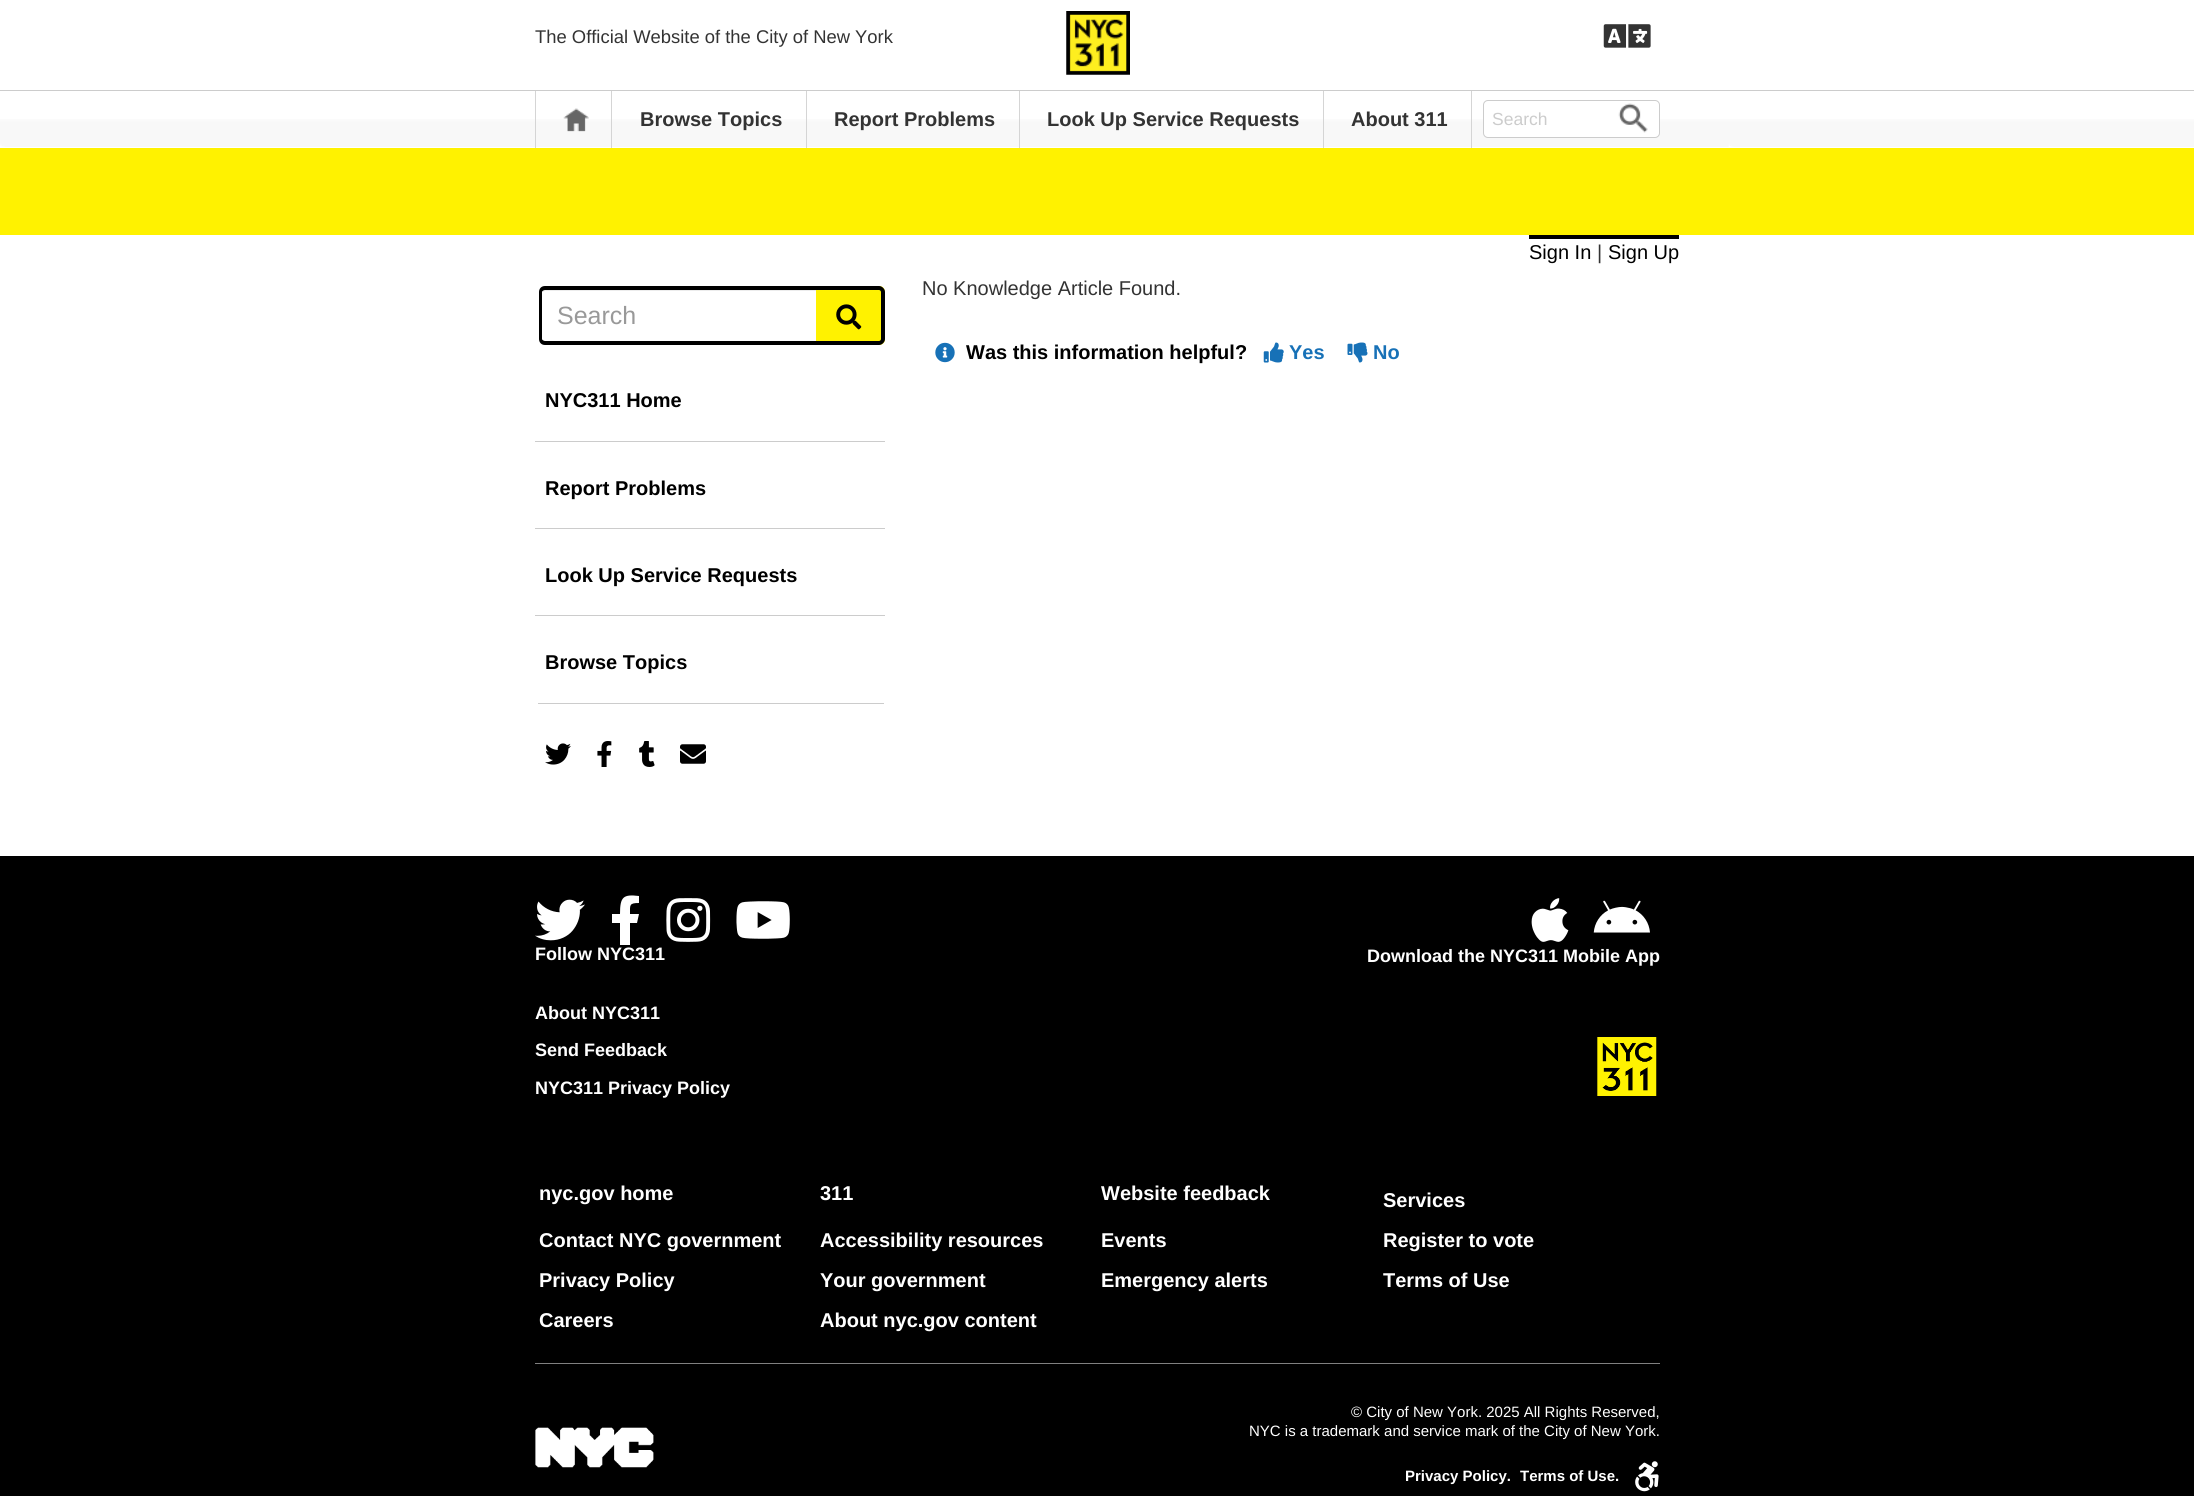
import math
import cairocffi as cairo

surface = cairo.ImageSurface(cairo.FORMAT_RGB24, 2194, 1496)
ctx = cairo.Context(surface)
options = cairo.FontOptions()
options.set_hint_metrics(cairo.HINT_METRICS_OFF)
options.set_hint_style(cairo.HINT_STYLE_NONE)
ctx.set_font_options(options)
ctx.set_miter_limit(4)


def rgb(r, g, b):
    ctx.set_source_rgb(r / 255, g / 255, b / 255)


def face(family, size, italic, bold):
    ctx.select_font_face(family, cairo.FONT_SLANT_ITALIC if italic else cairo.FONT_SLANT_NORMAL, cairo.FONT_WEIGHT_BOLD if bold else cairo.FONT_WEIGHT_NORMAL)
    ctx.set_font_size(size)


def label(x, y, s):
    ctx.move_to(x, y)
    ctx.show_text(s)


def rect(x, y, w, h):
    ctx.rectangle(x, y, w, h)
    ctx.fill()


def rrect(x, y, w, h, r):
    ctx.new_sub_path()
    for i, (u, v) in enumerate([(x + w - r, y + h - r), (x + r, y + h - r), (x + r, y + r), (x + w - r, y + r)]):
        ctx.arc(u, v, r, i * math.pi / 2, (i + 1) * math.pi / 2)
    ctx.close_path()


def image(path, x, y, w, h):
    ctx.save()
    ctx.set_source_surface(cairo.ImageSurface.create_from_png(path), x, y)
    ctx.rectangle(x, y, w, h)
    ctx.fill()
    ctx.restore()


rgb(255, 255, 255)
ctx.paint()
image('image0.png', 0, 119, 2194, 28)
face('Liberation Sans', 18.4, 0, 0)
rgb(51, 51, 51)
label(535, 43, 'The Official Website of the City of New York')
image('image1.png', 1066, 11, 64, 64)
image('image2.png', 1603, 24, 48, 24)
rgb(204, 204, 204)
rect(0, 90, 2194, 1)
rgb(213, 213, 213)
rect(611, 91, 1, 57)
rect(535, 91, 1, 57)
image('image3.png', 563, 108, 26, 24)
rect(806, 91, 1, 57)
face('Liberation Sans', 20, 0, 1)
rgb(51, 51, 51)
label(640, 126, 'Browse Topics')
rgb(213, 213, 213)
rect(1019, 91, 1, 57)
rgb(51, 51, 51)
label(834, 126, 'Report Problems')
rgb(213, 213, 213)
rect(1323, 91, 1, 57)
rgb(51, 51, 51)
label(1047, 126, 'Look Up Service Requests')
rgb(213, 213, 213)
rect(1471, 91, 1, 57)
rgb(51, 51, 51)
label(1351, 126, 'About 311')
rgb(255, 255, 255)
rrect(1483.5, 100.5, 176, 37, 4.5)
ctx.fill_preserve()
rgb(204, 204, 204)
ctx.set_line_width(1)
ctx.stroke()
face('Liberation Sans', 17.5, 0, 0)
label(1492, 125, 'Search')
image('image4.png', 1618, 103, 30, 30)
rgb(255, 242, 0)
rect(0, 148, 2194, 87)
rgb(0, 0, 0)
rect(1529, 235, 150, 4)
face('Liberation Sans', 20, 0, 0)
label(1529, 259, 'Sign In')
rgb(51, 51, 51)
label(1597, 259, '|')
rgb(0, 0, 0)
label(1608, 259, 'Sign Up')
rgb(236, 236, 236)
ctx.new_path()
ctx.move_to(545, 291)
ctx.line_to(818, 291)
ctx.line_to(818, 290)
ctx.line_to(546, 290)
ctx.curve_to(544, 290, 543, 291, 543, 292)
ctx.close_path()
ctx.fill()
rgb(0, 0, 0)
ctx.set_fill_rule(cairo.FILL_RULE_EVEN_ODD)
ctx.new_path()
ctx.move_to(545, 286)
ctx.line_to(818, 286)
ctx.line_to(818, 345)
ctx.line_to(545, 345)
ctx.curve_to(541, 345, 539, 342, 539, 339)
ctx.line_to(539, 292)
ctx.curve_to(539, 289, 541, 286, 545, 286)
ctx.close_path()
ctx.move_to(545, 290)
ctx.line_to(818, 290)
ctx.line_to(818, 341)
ctx.line_to(545, 341)
ctx.curve_to(544, 341, 542, 340, 542, 339)
ctx.line_to(542, 292)
ctx.curve_to(542, 291, 544, 290, 545, 290)
ctx.close_path()
ctx.fill()
face('Liberation Sans', 25, 0, 0)
rgb(153, 153, 153)
label(557, 324, 'Search')
rgb(255, 242, 0)
ctx.new_path()
ctx.move_to(816, 286)
ctx.line_to(879, 286)
ctx.curve_to(882.5, 286, 885, 288.5, 885, 292)
ctx.line_to(885, 339)
ctx.curve_to(885, 342.5, 882.5, 345, 879, 345)
ctx.line_to(816, 345)
ctx.close_path()
ctx.fill()
rgb(0, 0, 0)
ctx.new_path()
ctx.move_to(816, 286)
ctx.line_to(879, 286)
ctx.curve_to(882, 286, 885, 289, 885, 292)
ctx.line_to(885, 339)
ctx.curve_to(885, 342, 882, 345, 879, 345)
ctx.line_to(816, 345)
ctx.close_path()
ctx.move_to(816, 290)
ctx.line_to(879, 290)
ctx.curve_to(880, 290, 881, 291, 881, 292)
ctx.line_to(881, 339)
ctx.curve_to(881, 340, 880, 341, 879, 341)
ctx.line_to(816, 341)
ctx.close_path()
ctx.fill()
image('image5.png', 836, 304, 26, 26)
rgb(204, 204, 204)
rect(535, 441, 350, 1)
face('Liberation Sans', 20, 0, 1)
rgb(0, 0, 0)
label(545, 407, 'NYC311 Home')
rgb(204, 204, 204)
rect(535, 528, 350, 1)
rgb(0, 0, 0)
label(545, 495, 'Report Problems')
rgb(204, 204, 204)
rect(535, 615, 350, 1)
rgb(0, 0, 0)
label(545, 582, 'Look Up Service Requests')
rgb(204, 204, 204)
rect(538, 703, 346, 1)
rgb(0, 0, 0)
label(545, 669, 'Browse Topics')
image('image6.png', 545, 743, 26, 22)
image('image7.png', 597, 741, 15, 26)
image('image8.png', 639, 741, 16, 26)
image('image9.png', 680, 744, 26, 20)
face('Liberation Sans', 20, 0, 0)
rgb(51, 51, 51)
label(922, 295, 'No Knowledge Article Found.')
image('image10.png', 935, 342, 20, 21)
face('Liberation Sans', 20, 0, 1)
rgb(0, 0, 0)
label(966, 359, 'Was this information helpful?')
image('image11.png', 1263, 342, 21, 21)
rgb(23, 113, 183)
label(1289, 359, 'Yes')
image('image12.png', 1347, 342, 21, 21)
label(1373, 359, 'No')
rgb(0, 0, 0)
rect(0, 856, 2194, 640)
image('image13.png', 535, 899, 50, 42)
rgb(255, 255, 255)
ctx.set_fill_rule(cairo.FILL_RULE_WINDING)
ctx.new_path()
ctx.move_to(637, 923)
ctx.line_to(630, 923)
ctx.line_to(630, 945)
ctx.line_to(620, 945)
ctx.line_to(620, 923)
ctx.line_to(612, 923)
ctx.line_to(612, 914)
ctx.line_to(620, 914)
ctx.curve_to(620, 897, 623, 894, 639, 896)
ctx.line_to(639, 903)
ctx.curve_to(629, 903, 630, 905, 630, 914)
ctx.line_to(639, 914)
ctx.close_path()
ctx.fill()
image('image14.png', 666, 898, 45, 44)
image('image15.png', 736, 901, 54, 38)
face('Liberation Sans', 18, 0, 1)
label(535, 960, 'Follow NYC311')
image('image16.png', 1531, 898, 38, 44)
image('image17.png', 1593, 900, 57, 33)
label(1367, 962, 'Download the NYC311 Mobile App')
label(535, 1019, 'About NYC311')
label(535, 1056, 'Send Feedback')
label(535, 1094, 'NYC311 Privacy Policy')
image('image18.png', 1597, 1037, 60, 59)
rgb(128, 128, 128)
rect(535, 1363, 1125, 1)
face('Liberation Sans', 20, 0, 1)
rgb(255, 255, 255)
label(539, 1200, 'nyc.gov home')
label(820, 1200, '311')
label(1101, 1200, 'Website feedback')
label(1383, 1207, 'Services')
label(539, 1247, 'Contact NYC government')
label(820, 1247, 'Accessibility resources')
label(1101, 1247, 'Events')
label(1383, 1247, 'Register to vote')
label(539, 1287, 'Privacy Policy')
label(820, 1287, 'Your government')
label(1101, 1287, 'Emergency alerts')
label(1383, 1287, 'Terms of Use')
label(539, 1327, 'Careers')
label(820, 1327, 'About nyc.gov content')
image('image19.png', 535, 1427, 119, 41)
face('Liberation Sans', 15, 0, 0)
label(1351, 1417, '© City of New York. 2025 All Rights Reserved,')
label(1249, 1436, 'NYC is a trademark and service mark of the City of New York.')
face('Liberation Sans', 15, 0, 1)
label(1405, 1481, 'Privacy Policy.')
label(1520, 1481, 'Terms of Use.')
image('image20.png', 1635, 1461, 24, 31)
surface.write_to_png('render.png')
